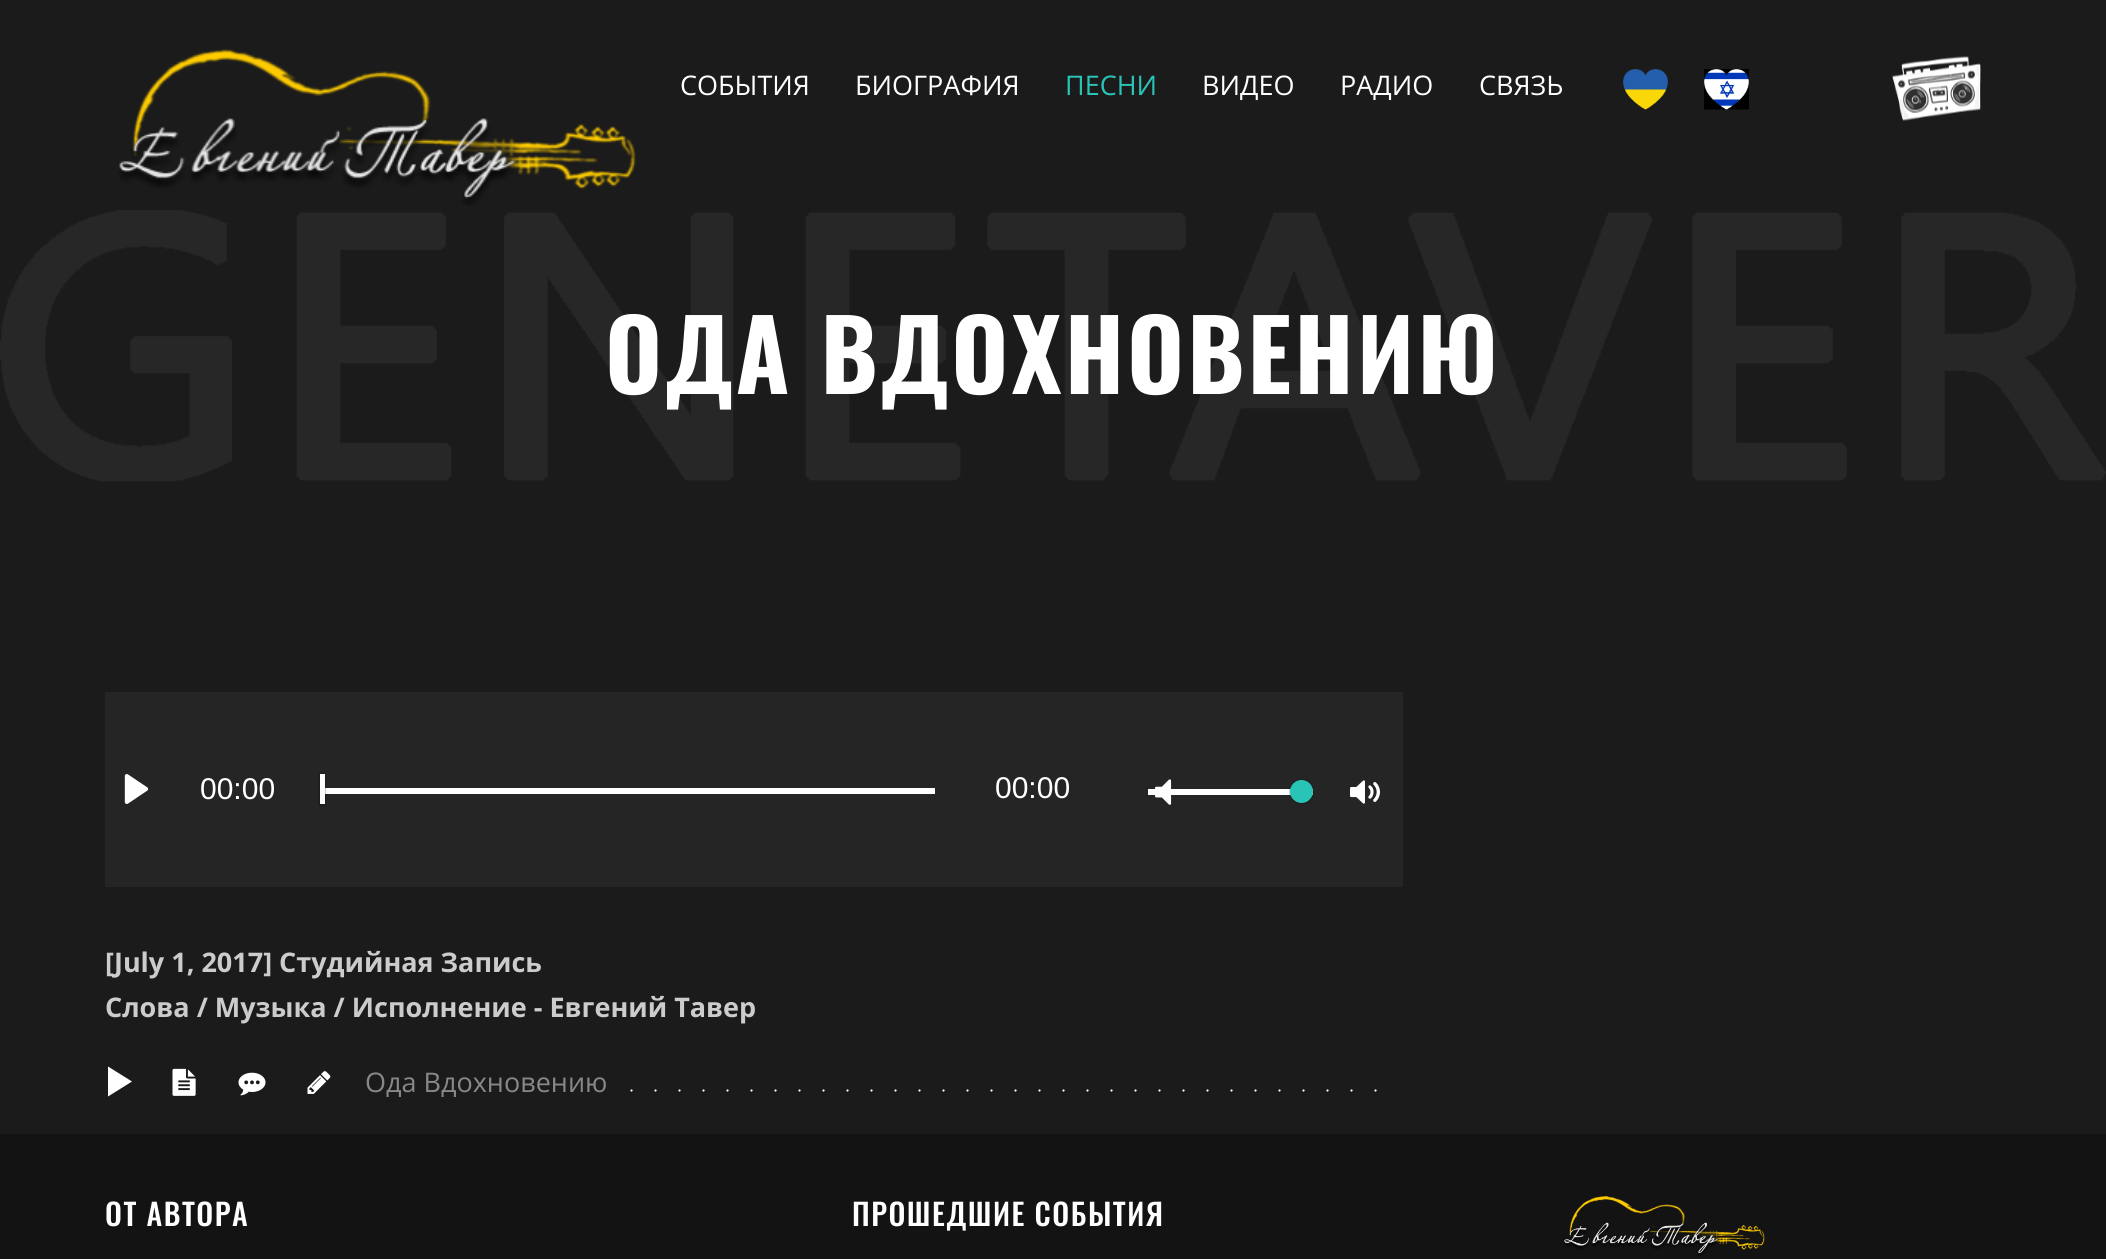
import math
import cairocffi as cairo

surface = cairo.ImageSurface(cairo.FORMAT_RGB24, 2106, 1259)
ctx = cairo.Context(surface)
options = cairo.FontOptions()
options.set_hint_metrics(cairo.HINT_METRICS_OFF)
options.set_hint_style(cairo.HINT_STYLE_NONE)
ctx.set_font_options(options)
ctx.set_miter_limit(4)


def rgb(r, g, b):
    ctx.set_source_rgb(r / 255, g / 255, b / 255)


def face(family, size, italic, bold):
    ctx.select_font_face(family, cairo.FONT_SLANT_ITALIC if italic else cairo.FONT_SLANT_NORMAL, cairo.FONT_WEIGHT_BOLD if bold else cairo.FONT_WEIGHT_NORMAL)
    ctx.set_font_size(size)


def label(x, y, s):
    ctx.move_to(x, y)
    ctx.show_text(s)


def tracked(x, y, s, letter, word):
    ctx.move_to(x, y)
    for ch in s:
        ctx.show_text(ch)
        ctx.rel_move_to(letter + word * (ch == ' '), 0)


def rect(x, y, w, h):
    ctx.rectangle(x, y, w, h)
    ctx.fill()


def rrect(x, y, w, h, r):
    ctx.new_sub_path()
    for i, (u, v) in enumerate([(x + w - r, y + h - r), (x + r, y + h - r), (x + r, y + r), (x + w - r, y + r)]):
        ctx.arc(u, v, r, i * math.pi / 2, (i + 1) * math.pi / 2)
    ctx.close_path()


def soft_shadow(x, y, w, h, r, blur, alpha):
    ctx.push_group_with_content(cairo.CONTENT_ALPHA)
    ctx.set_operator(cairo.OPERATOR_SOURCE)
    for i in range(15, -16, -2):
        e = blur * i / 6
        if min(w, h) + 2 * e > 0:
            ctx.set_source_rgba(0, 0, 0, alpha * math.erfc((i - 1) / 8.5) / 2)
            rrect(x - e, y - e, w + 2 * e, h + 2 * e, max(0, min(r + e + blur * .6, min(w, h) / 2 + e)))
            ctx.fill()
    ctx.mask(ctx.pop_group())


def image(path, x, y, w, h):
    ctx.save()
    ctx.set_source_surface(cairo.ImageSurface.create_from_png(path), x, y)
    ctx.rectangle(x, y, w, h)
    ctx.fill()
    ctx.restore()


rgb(27, 27, 27)
ctx.paint()
image('image0.png', 119, 49, 517, 157)
face('Open Sans', 27, 0, 0)
rgb(255, 255, 255)
label(680, 95, 'СОБЫТИЯ')
label(855, 95, 'БИОГРАФИЯ')
rgb(42, 196, 183)
label(1065, 95, 'ПЕСНИ')
rgb(255, 255, 255)
label(1202, 95, 'ВИДЕО')
label(1340, 95, 'РАДИО')
label(1479, 95, 'СВЯЗЬ')
image('image1.png', 1623, 69, 45, 41)
image('image2.png', 1704, 69, 45, 41)
image('image3.png', 1892, 56, 89, 65)
image('image4.png', 0, 210, 2106, 272)
face('Oswald', 97.5, 0, 1)
tracked(605, 394, 'ОДА ВДОХНОВЕНИЮ', 3, 0)
rgb(37, 37, 37)
rect(105, 692, 1298, 195)
image('image5.png', 124, 774, 25, 30)
face('Liberation Sans', 30, 0, 0)
rgb(255, 255, 255)
label(200, 799, '00:00')
rect(320, 788, 615, 6)
ctx.rectangle(319, 774, 6, 31)
ctx.set_source_rgba(0, 0, 0, 0.15)
ctx.stroke()
rgb(0, 0, 0)
soft_shadow(320, 776, 5, 30, 0, 1, 0.15)
rgb(255, 255, 255)
rect(320, 774, 5, 30)
label(995, 798, '00:00')
image('image6.png', 1155, 779, 17, 26)
rect(1148, 789, 165, 6)
ctx.arc(1301.5, 791.5, 11.5, 0, 2 * math.pi)
ctx.set_source_rgba(0, 0, 0, 0.15)
ctx.stroke()
rgb(0, 0, 0)
soft_shadow(1290, 782, 23, 22, 11, 1, 0.15)
rgb(42, 196, 183)
ctx.arc(1301.5, 791.5, 11.5, 0, 2 * math.pi)
ctx.fill()
image('image7.png', 1350, 780, 30, 24)
face('Open Sans', 27, 0, 1)
rgb(204, 204, 204)
label(105, 972, '[July 1, 2017] Студийная Запись')
label(105, 1017, 'Слова / Музыка / Исполнение - Евгений Тавер')
rgb(255, 255, 255)
ctx.new_path()
ctx.move_to(108, 1066.5)
ctx.line_to(108, 1096.5)
ctx.line_to(132, 1081.5)
ctx.close_path()
ctx.fill()
image('image8.png', 172, 1068, 24, 28)
image('image9.png', 238, 1072, 28, 24)
image('image10.png', 307, 1071, 24, 23)
face('Open Sans', 27, 0, 0)
rgb(136, 136, 136)
label(365, 1092, 'Ода Вдохновению')
ctx.new_path()
ctx.move_to(631.5, 1090.5)
ctx.line_to(1375.8, 1090.5)
rgb(255, 255, 255)
ctx.set_line_width(2.2)
ctx.set_line_cap(cairo.LINE_CAP_ROUND)
ctx.set_dash([0, 24])
ctx.stroke()
rgb(19, 19, 19)
rect(0, 1134, 2106, 125)
face('Oswald Medium', 30, 0, 0)
rgb(255, 255, 255)
tracked(105, 1226, 'ОТ АВТОРА', 1.5, 0)
tracked(852, 1226, 'ПРОШЕДШИЕ СОБЫТИЯ', 1.5, 0)
image('image11.png', 1564, 1196, 201, 60)
surface.write_to_png('render.png')
